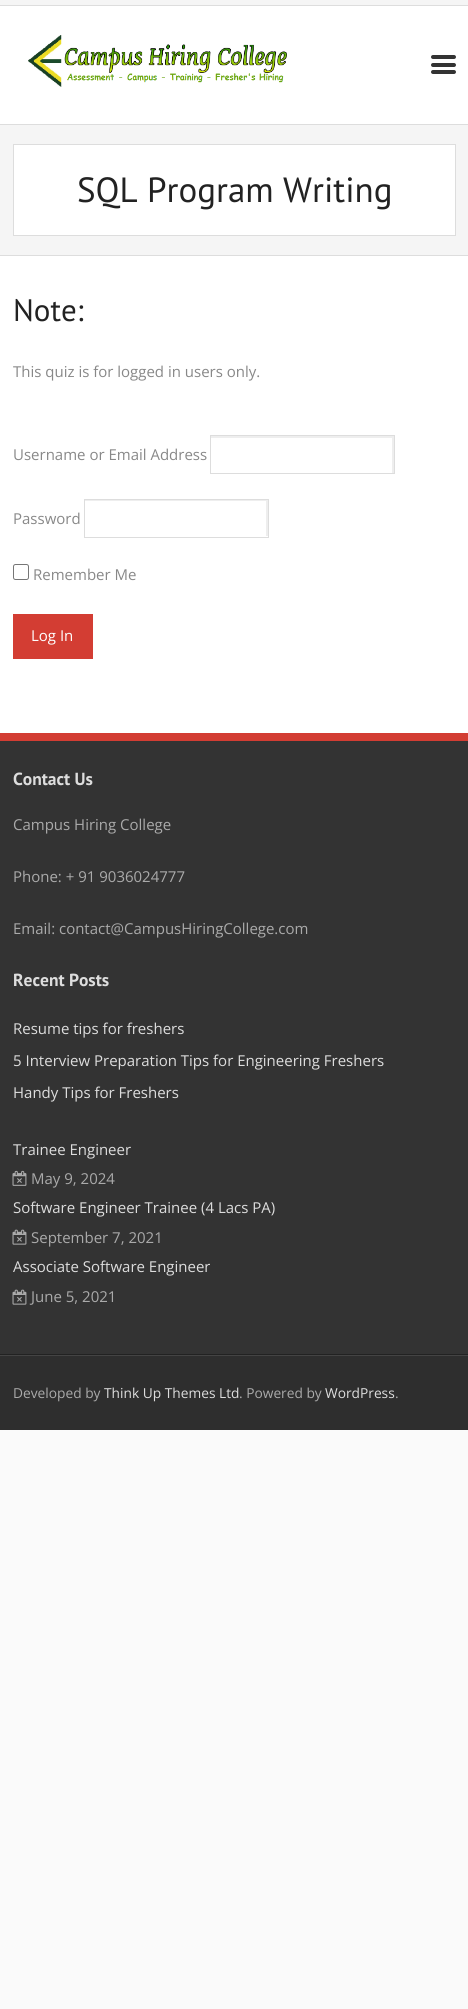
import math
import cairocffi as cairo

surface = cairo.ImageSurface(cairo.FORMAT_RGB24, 468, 2009)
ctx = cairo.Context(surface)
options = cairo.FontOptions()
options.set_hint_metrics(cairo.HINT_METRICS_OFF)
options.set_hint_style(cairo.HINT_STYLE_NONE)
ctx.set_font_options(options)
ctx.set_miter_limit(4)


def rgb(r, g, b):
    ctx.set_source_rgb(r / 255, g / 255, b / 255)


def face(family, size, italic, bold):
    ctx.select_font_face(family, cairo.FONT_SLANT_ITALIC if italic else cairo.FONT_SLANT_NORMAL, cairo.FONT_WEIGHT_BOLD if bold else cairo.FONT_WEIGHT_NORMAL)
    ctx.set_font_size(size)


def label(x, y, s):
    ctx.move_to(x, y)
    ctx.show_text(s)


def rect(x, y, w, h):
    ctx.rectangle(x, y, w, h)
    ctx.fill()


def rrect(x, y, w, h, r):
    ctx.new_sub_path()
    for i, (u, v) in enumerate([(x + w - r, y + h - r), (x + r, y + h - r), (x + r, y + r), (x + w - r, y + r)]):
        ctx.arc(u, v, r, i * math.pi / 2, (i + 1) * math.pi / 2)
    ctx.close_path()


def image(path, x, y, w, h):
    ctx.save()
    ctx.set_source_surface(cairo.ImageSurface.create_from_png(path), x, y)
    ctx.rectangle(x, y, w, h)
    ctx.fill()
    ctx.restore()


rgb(250, 250, 250)
ctx.paint()
rgb(255, 255, 255)
rect(0, 6, 468, 727)
rgb(221, 221, 221)
rect(0, 124, 468, 1)
rgb(245, 245, 245)
rect(0, 0, 468, 5)
rgb(221, 221, 221)
rect(0, 5, 468, 1)
image('image0.png', 28, 35, 259, 52)
rgb(51, 51, 51)
rrect(431, 55, 25, 4, 2)
ctx.fill()
rrect(431, 63, 25, 4, 2)
ctx.fill()
rrect(431, 70, 25, 4, 2)
ctx.fill()
rgb(245, 245, 245)
rect(0, 125, 468, 130)
rgb(221, 221, 221)
rect(0, 255, 468, 1)
rgb(255, 255, 255)
ctx.rectangle(13.5, 144.5, 442, 91)
ctx.fill_preserve()
rgb(221, 221, 221)
ctx.set_line_width(1)
ctx.stroke()
face('PT Sans', 35, 0, 0)
rgb(34, 34, 34)
label(77, 202, 'SQL Program Writing')
face('PT Sans', 31, 0, 0)
label(13, 321, 'Note:')
face('Open Sans', 15, 0, 0)
rgb(136, 136, 136)
label(13, 377, 'This quiz is for logged in users only.')
label(13, 460, 'Username or Email Address')
ctx.save()
ctx.rectangle(211, 436, 183, 37)
ctx.clip()
rgb(238, 238, 238)
ctx.set_fill_rule(cairo.FILL_RULE_EVEN_ODD)
ctx.new_path()
ctx.move_to(88, 312)
ctx.line_to(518, 312)
ctx.line_to(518, 596)
ctx.line_to(88, 596)
ctx.close_path()
ctx.move_to(210, 438)
ctx.line_to(392, 438)
ctx.line_to(392, 474)
ctx.line_to(210, 474)
ctx.close_path()
ctx.fill()
ctx.restore()
ctx.rectangle(210.5, 435.5, 184, 38)
rgb(221, 221, 221)
ctx.stroke()
rgb(136, 136, 136)
label(13, 524, 'Password')
ctx.save()
ctx.rectangle(85, 500, 183, 36)
ctx.clip()
rgb(238, 238, 238)
ctx.set_fill_rule(cairo.FILL_RULE_EVEN_ODD)
ctx.new_path()
ctx.move_to(-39, 376)
ctx.line_to(391, 376)
ctx.line_to(391, 660)
ctx.line_to(-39, 660)
ctx.close_path()
ctx.move_to(84, 501)
ctx.line_to(266, 501)
ctx.line_to(266, 538)
ctx.line_to(84, 538)
ctx.close_path()
ctx.fill()
ctx.restore()
ctx.rectangle(84.5, 499.5, 184, 38)
rgb(221, 221, 221)
ctx.stroke()
rrect(13.5, 564.5, 15, 15, 2)
rgb(118, 118, 118)
ctx.stroke()
rgb(136, 136, 136)
label(33, 580, 'Remember Me')
rgb(211, 61, 51)
rect(13, 614, 80, 45)
rgb(255, 255, 255)
label(31, 641, 'Log In')
rgb(51, 51, 51)
rect(0, 741, 468, 613)
rgb(211, 61, 51)
rect(0, 733, 468, 8)
rgb(34, 34, 34)
rect(0, 1354, 468, 1)
face('PT Sans', 17.5, 0, 1)
rgb(221, 221, 221)
label(13, 785, 'Contact Us')
face('Open Sans', 15, 0, 0)
rgb(170, 170, 170)
label(13, 830, 'Campus Hiring College')
label(13, 882, 'Phone: + 91 9036024777')
label(13, 934, 'Email: contact@CampusHiringCollege.com')
face('PT Sans', 17.5, 0, 1)
rgb(221, 221, 221)
label(13, 986, 'Recent Posts')
face('Open Sans', 15, 0, 0)
label(13, 1034, 'Resume tips for freshers')
label(13, 1066, '5 Interview Preparation Tips for Engineering Freshers')
label(13, 1098, 'Handy Tips for Freshers')
label(13, 1155, 'Trainee Engineer')
image('image1.png', 12, 1170, 15, 16)
rgb(170, 170, 170)
label(31, 1184, 'May 9, 2024')
rgb(221, 221, 221)
label(13, 1213, 'Software Engineer Trainee (4 Lacs PA)')
image('image2.png', 12, 1229, 15, 16)
rgb(170, 170, 170)
label(31, 1243, 'September 7, 2021')
rgb(221, 221, 221)
label(13, 1272, 'Associate Software Engineer')
image('image2.png', 12, 1289, 15, 16)
rgb(170, 170, 170)
label(31, 1302, 'June 5, 2021')
rgb(46, 46, 46)
rect(0, 1356, 468, 74)
rgb(68, 68, 68)
rect(0, 1355, 468, 1)
face('Open Sans', 13.75, 0, 0)
rgb(170, 170, 170)
label(13, 1398, 'Developed by')
rgb(221, 221, 221)
label(104, 1398, 'Think Up Themes Ltd')
rgb(170, 170, 170)
label(239, 1398, '. Powered by')
rgb(221, 221, 221)
label(325, 1398, 'WordPress')
rgb(170, 170, 170)
label(395, 1398, '.')
surface.write_to_png('render.png')
